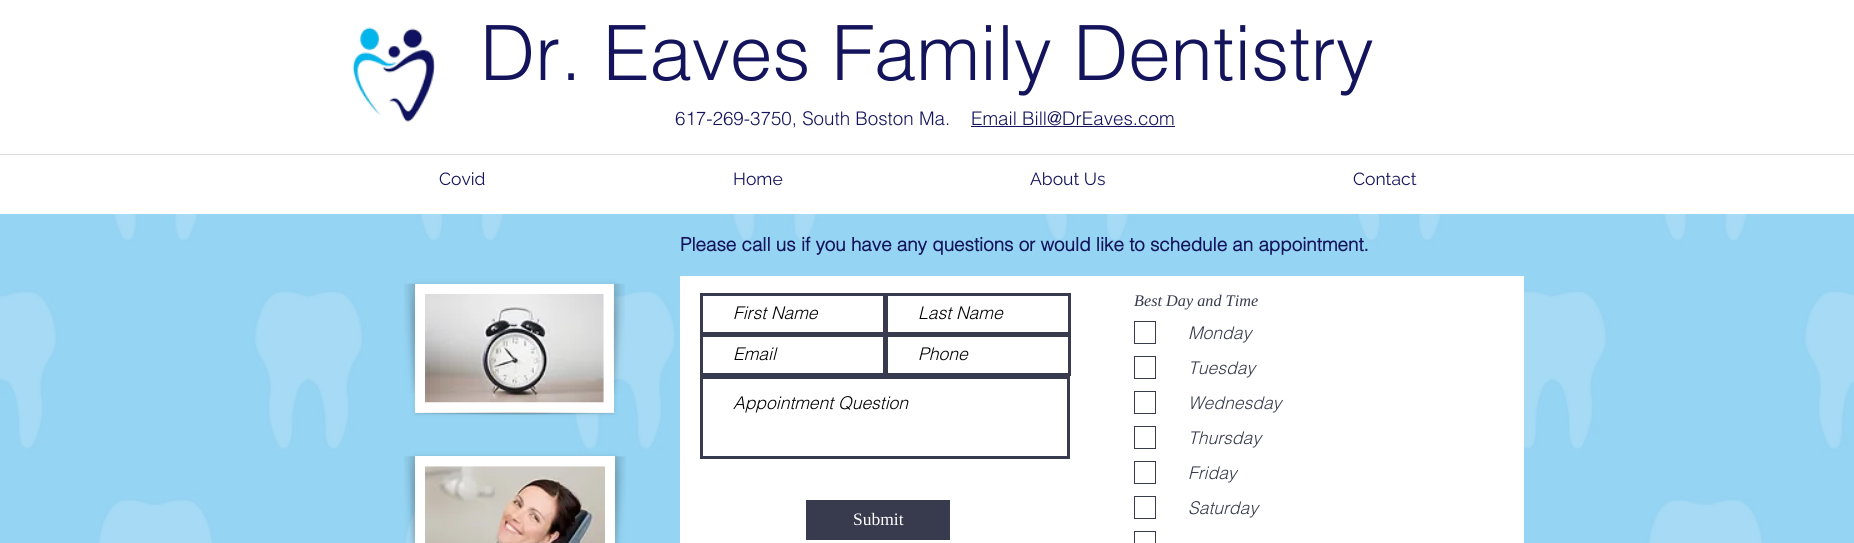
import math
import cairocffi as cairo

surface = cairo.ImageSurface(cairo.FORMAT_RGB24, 1854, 543)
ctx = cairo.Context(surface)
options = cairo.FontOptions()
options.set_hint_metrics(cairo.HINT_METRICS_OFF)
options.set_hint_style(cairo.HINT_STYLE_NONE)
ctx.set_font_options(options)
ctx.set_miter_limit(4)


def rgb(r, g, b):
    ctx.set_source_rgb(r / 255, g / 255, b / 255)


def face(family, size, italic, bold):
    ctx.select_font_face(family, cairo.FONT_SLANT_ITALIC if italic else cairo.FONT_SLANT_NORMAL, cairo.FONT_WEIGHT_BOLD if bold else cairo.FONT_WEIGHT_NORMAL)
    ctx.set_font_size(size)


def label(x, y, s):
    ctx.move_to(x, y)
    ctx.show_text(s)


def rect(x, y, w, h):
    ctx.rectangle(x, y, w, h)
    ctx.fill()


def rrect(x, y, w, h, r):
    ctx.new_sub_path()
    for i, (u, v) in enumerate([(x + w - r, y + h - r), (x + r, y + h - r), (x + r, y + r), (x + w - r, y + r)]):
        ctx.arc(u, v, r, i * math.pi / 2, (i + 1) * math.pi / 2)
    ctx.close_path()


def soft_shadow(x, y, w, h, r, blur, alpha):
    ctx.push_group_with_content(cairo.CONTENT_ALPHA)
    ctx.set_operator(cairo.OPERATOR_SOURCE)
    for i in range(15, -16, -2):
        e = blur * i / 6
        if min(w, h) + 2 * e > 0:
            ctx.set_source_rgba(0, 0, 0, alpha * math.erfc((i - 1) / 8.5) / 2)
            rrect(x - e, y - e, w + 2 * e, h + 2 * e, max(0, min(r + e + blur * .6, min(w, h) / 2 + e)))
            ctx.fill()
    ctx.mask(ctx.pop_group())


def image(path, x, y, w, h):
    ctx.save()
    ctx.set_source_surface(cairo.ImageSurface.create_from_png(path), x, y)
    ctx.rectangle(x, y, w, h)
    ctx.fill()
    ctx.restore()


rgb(158, 215, 244)
ctx.paint()
rgb(255, 255, 255)
rect(0, 0, 1854, 214)
image('image0.png', 352, 27, 83, 95)
face('helvetica Light', 76.25, 0, 0)
rgb(20, 20, 92)
label(480, 80, 'Dr. Eaves Family Dentistry')
face('helvetica Light', 18.75, 0, 0)
label(675, 125, '617-269-3750, South Boston Ma.')
label(971, 125, 'Email Bill@DrEaves.com')
rect(971, 126, 204, 1)
rgb(220, 220, 231)
rect(0, 154, 1854, 1)
face('Raleway', 17.5, 0, 0)
rgb(20, 20, 92)
label(439, 185, 'Covid')
label(733, 185, 'Home')
label(1030, 185, 'About Us')
label(1353, 185, 'Contact')
image('image8.png', 0, 214, 1854, 329)
face('helvetica', 18.75, 0, 1)
label(680, 251, 'Please call us if you have any questions or would like to schedule an appointment.')
rgb(0, 0, 0)
soft_shadow(415, 284, 199, 129, 0, 3, 0.1)
rgb(255, 255, 255)
rect(415, 284, 199, 129)
image('image1.png', 425, 294, 179, 109)
image('image2.png', 415, 412, 199, 3)
image('image3.png', 404, 283, 11, 111)
image('image4.png', 613, 283, 12, 111)
rect(680, 276, 844, 267)
ctx.rectangle(701.5, 294.5, 183, 39)
rgb(55, 59, 77)
ctx.set_line_width(3)
ctx.stroke()
face('helvetica Light', 17.5, 1, 0)
rgb(0, 0, 0)
label(733, 319, 'First Name')
ctx.rectangle(886.5, 294.5, 183, 39)
rgb(55, 59, 77)
ctx.stroke()
rgb(0, 0, 0)
label(918, 319, 'Last Name')
face('Liberation Serif', 16.25, 1, 0)
rgb(55, 59, 77)
label(1134, 306, 'Best Day and Time')
ctx.rectangle(1134.5, 321.5, 21, 22)
ctx.set_line_width(1)
ctx.stroke()
face('helvetica Light', 17.5, 1, 0)
label(1188, 339, 'Monday')
ctx.rectangle(1134.5, 356.5, 21, 22)
ctx.stroke()
label(1188, 374, 'Tuesday')
ctx.rectangle(1134.5, 391.5, 21, 22)
ctx.stroke()
label(1188, 409, 'Wednesday')
ctx.rectangle(1134.5, 426.5, 21, 22)
ctx.stroke()
label(1188, 444, 'Thursday')
ctx.rectangle(1134.5, 461.5, 21, 22)
ctx.stroke()
label(1188, 479, 'Friday')
ctx.rectangle(1134.5, 496.5, 21, 22)
ctx.stroke()
label(1188, 514, 'Saturday')
ctx.rectangle(1134.5, 531.5, 21, 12)
ctx.stroke()
ctx.rectangle(701.5, 335.5, 183, 39)
ctx.set_line_width(3)
ctx.stroke()
rgb(0, 0, 0)
label(733, 360, 'Email')
ctx.rectangle(886.5, 335.5, 183, 39)
rgb(55, 59, 77)
ctx.stroke()
rgb(0, 0, 0)
label(918, 360, 'Phone')
ctx.rectangle(701.5, 377.5, 367, 80)
rgb(55, 59, 77)
ctx.stroke()
rgb(0, 0, 0)
label(733, 409, 'Appointment Question')
rgb(55, 59, 77)
rect(806, 500, 144, 40)
face('Liberation Serif', 17.5, 0, 0)
rgb(255, 255, 255)
label(853, 525, 'Submit')
rgb(0, 0, 0)
soft_shadow(415, 456, 200, 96, 0, 3, 0.1)
rgb(255, 255, 255)
rect(415, 456, 200, 87)
image('image5.png', 425, 466, 180, 77)
image('image6.png', 404, 456, 11, 87)
image('image7.png', 615, 456, 11, 87)
surface.write_to_png('render.png')
